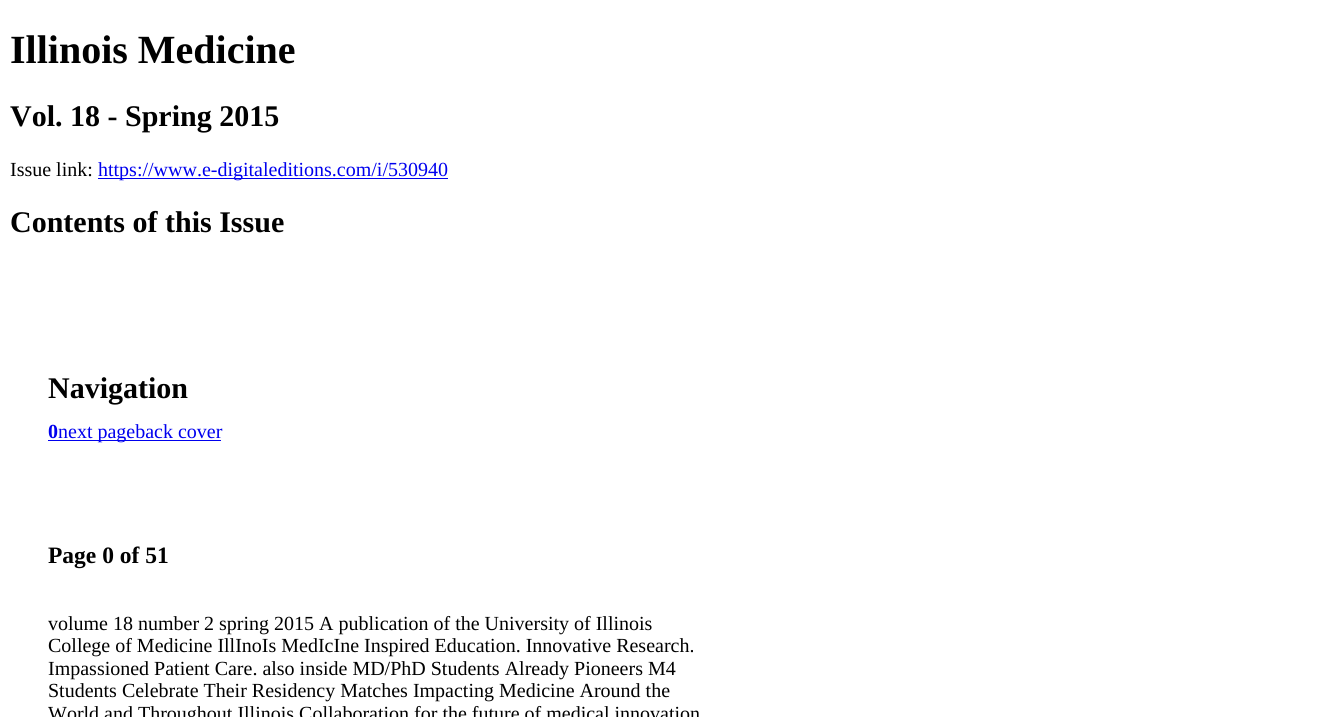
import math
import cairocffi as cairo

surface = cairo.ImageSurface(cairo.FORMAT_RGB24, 1328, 717)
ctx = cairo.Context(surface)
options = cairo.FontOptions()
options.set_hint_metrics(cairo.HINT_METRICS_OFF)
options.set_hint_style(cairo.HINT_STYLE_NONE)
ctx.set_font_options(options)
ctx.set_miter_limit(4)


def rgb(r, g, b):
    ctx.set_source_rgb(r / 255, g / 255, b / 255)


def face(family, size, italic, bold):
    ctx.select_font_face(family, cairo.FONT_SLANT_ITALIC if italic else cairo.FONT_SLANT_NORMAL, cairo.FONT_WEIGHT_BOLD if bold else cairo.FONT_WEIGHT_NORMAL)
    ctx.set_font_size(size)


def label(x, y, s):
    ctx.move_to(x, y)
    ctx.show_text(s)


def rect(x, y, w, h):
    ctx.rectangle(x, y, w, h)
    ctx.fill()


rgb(255, 255, 255)
ctx.paint()
face('Liberation Serif', 40, 0, 1)
rgb(0, 0, 0)
label(10, 63, 'Illinois Medicine')
face('Liberation Serif', 30, 0, 1)
label(10, 126, 'Vol. 18 - Spring 2015')
face('Liberation Serif', 20, 0, 0)
label(10, 176, 'Issue link:')
rgb(0, 0, 238)
rect(98, 178, 350, 1)
label(98, 176, 'https://www.e-digitaleditions.com/i/530940')
face('Liberation Serif', 30, 0, 1)
rgb(0, 0, 0)
label(10, 232, 'Contents of this Issue')
label(48, 398, 'Navigation')
face('Liberation Serif', 20, 0, 1)
rgb(0, 0, 238)
label(48, 438, '0')
rect(48, 440, 173, 1)
face('Liberation Serif', 20, 0, 0)
label(58, 438, 'next pageback cover')
face('Liberation Serif', 23.5, 0, 1)
rgb(0, 0, 0)
label(48, 563, 'Page 0 of 51')
face('Liberation Serif', 20, 0, 0)
label(48, 630, 'volume 18 number 2 spring 2015 A publication of the University of Illinois')
label(48, 652, 'College of Medicine IllInoIs MedIcIne Inspired Education. Innovative Research.')
label(48, 675, 'Impassioned Patient Care. also inside MD/PhD Students Already Pioneers M4')
label(48, 697, 'Students Celebrate Their Residency Matches Impacting Medicine Around the')
label(48, 720, 'World and Throughout Illinois Collaboration for the future of medical innovation')
surface.write_to_png('render.png')
